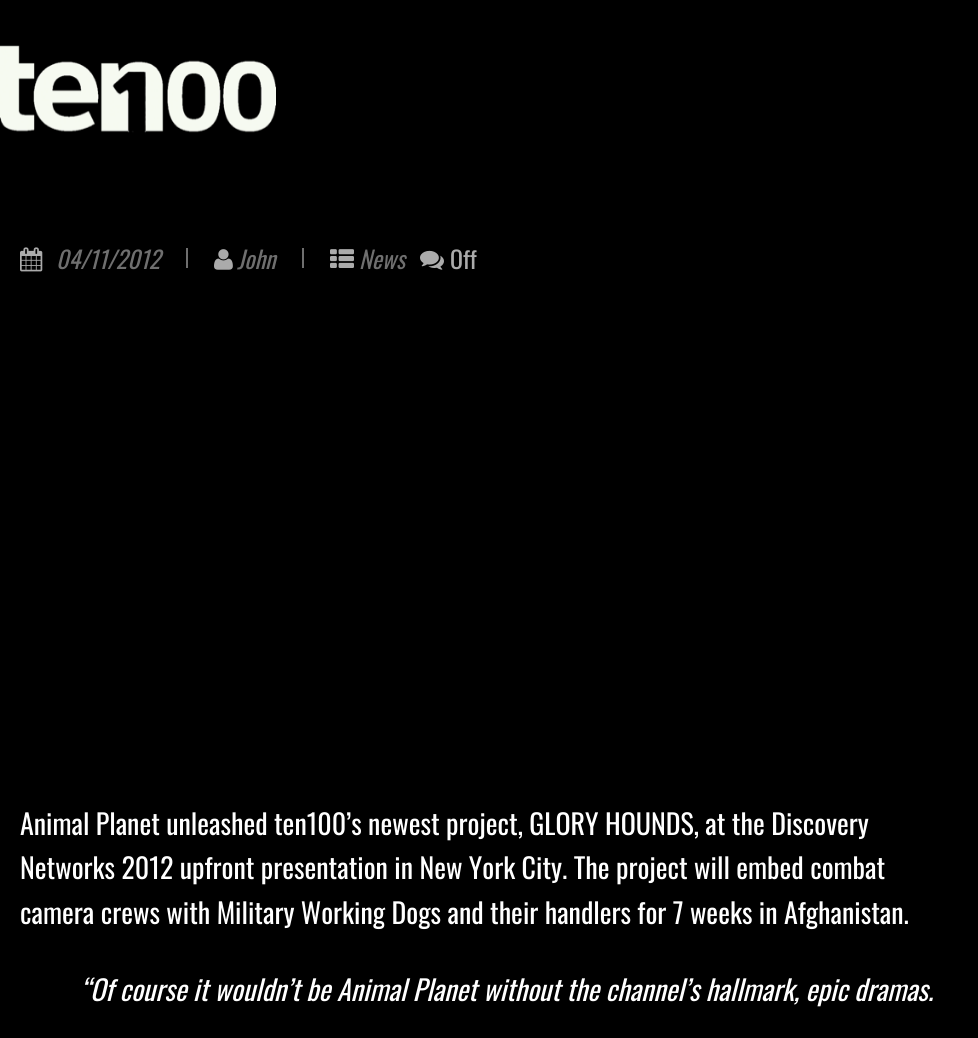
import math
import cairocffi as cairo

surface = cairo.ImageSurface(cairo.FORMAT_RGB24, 978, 1038)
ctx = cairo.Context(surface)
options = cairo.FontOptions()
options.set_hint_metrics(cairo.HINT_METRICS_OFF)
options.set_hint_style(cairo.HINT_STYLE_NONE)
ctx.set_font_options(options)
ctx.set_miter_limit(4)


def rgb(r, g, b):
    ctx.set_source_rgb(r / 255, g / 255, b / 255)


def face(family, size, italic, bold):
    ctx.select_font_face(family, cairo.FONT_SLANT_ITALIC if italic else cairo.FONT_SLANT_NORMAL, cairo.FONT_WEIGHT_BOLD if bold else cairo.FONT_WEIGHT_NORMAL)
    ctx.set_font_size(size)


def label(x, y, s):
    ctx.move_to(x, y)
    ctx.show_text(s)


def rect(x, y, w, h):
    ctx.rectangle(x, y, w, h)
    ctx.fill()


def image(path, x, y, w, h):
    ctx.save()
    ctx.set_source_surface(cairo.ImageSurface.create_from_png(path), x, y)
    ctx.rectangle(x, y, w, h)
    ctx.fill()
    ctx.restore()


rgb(0, 0, 0)
ctx.paint()
image('image0.png', 0, 45, 276, 88)
image('image1.png', 20, 247, 23, 25)
face('Oswald', 24, 1, 0)
rgb(111, 111, 111)
label(56, 269, '04/11/2012')
rect(186, 248, 2, 20)
image('image2.png', 214, 249, 19, 21)
label(237, 269, 'John')
rect(302, 248, 2, 20)
image('image3.png', 330, 249, 24, 19)
label(359, 269, 'News')
image('image4.png', 420, 250, 24, 20)
face('Oswald', 24, 0, 0)
rgb(171, 171, 171)
label(450, 269, 'Off')
face('Oswald', 28, 0, 0)
rgb(255, 255, 255)
label(20, 835, 'Animal Planet unleashed ten100’s newest project, GLORY HOUNDS, at the Discovery')
label(20, 879, 'Networks 2012 upfront presentation in New York City. The project will embed combat')
label(20, 924, 'camera crews with Military Working Dogs and their handlers for 7 weeks in Afghanistan.')
face('Oswald', 28, 1, 0)
label(80, 1001, '“Of course it wouldn’t be Animal Planet without the channel’s hallmark, epic dramas.')
surface.write_to_png('render.png')
